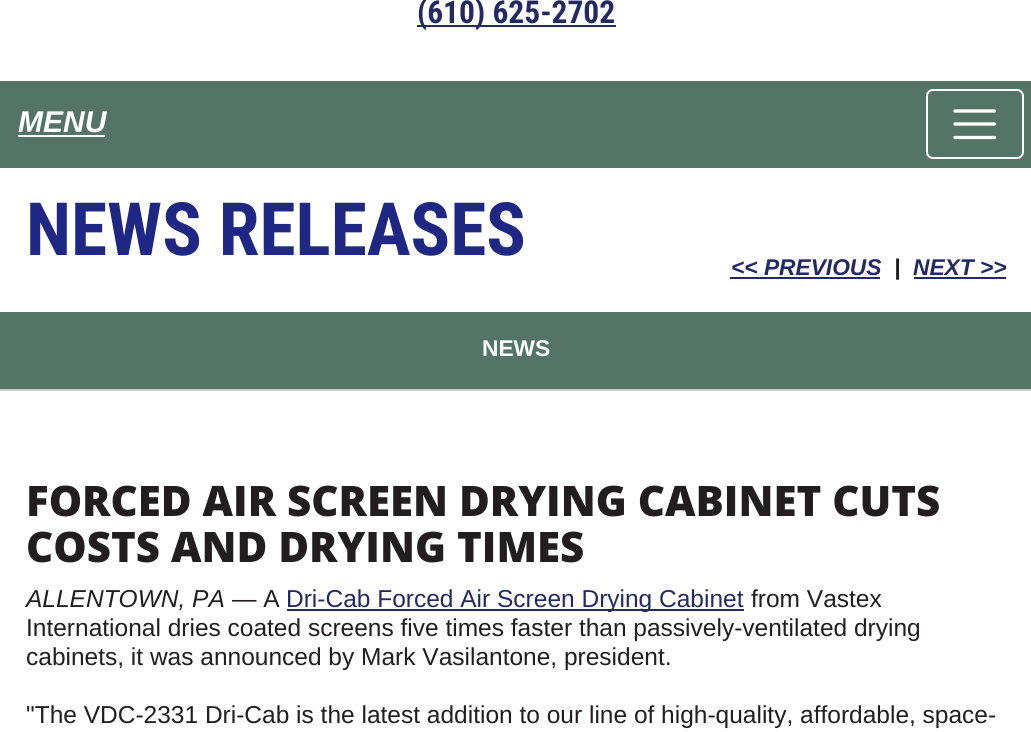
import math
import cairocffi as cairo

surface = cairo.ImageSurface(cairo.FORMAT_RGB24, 1031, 732)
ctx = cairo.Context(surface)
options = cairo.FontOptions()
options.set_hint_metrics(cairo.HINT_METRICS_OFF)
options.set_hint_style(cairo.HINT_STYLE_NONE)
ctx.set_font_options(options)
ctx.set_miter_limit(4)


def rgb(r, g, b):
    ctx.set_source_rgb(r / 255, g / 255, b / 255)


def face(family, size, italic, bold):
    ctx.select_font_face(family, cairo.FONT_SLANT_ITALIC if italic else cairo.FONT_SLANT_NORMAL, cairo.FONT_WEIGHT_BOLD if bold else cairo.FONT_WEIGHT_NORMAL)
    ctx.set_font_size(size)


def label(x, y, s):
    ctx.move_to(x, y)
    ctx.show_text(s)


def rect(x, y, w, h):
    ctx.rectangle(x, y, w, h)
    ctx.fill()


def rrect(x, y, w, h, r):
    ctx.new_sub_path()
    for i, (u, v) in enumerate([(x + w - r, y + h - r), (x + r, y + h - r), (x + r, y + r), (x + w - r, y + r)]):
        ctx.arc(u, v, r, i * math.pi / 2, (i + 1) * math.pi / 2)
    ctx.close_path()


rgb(255, 255, 255)
ctx.paint()
rgb(35, 41, 99)
rect(417, 25, 199, 2)
face('Roboto Condensed', 31.5, 0, 1)
label(417, 23, '(610) 625-2702')
rgb(84, 116, 103)
rect(0, 81, 1031, 87)
face('Liberation Sans', 30, 1, 1)
rgb(255, 255, 255)
label(18, 132, 'MENU')
rect(18, 135, 87, 2)
rrect(927, 90, 96, 68, 6)
ctx.stroke()
ctx.new_path()
ctx.move_to(955, 111)
ctx.line_to(994.5, 111)
ctx.move_to(955, 124)
ctx.line_to(994.5, 124)
ctx.move_to(955, 137.5)
ctx.line_to(994.5, 137.5)
ctx.set_line_width(3.3)
ctx.set_line_cap(cairo.LINE_CAP_ROUND)
ctx.stroke()
face('Roboto Condensed', 73.5, 0, 1)
rgb(30, 39, 131)
label(26, 255, 'NEWS RELEASES')
face('Liberation Sans', 22.75, 1, 1)
rgb(35, 41, 99)
label(731, 275, '<< PREVIOUS')
rect(730, 277, 150, 2)
rgb(34, 30, 31)
label(894, 275, '|')
rgb(35, 41, 99)
label(913, 275, 'NEXT >>')
rect(914, 277, 92, 2)
rgb(84, 116, 103)
rect(0, 312, 1031, 77)
rgb(204, 204, 204)
rect(0, 389, 1031, 2)
face('Liberation Sans', 22.75, 0, 1)
rgb(255, 255, 255)
label(482, 356, 'NEWS')
face('Open Sans ExtraBold', 42, 0, 0)
rgb(34, 30, 31)
label(26, 516, 'FORCED AIR SCREEN DRYING CABINET CUTS')
label(26, 562, 'COSTS AND DRYING TIMES')
face('Liberation Sans', 24.5, 1, 0)
label(26, 607, 'ALLENTOWN, PA')
face('Liberation Sans', 24.5, 0, 0)
label(232, 607, '— A')
rgb(35, 41, 99)
rect(287, 609, 457, 2)
label(286, 607, 'Dri-Cab Forced Air Screen Drying Cabinet')
rgb(34, 30, 31)
label(751, 607, 'from Vastex')
label(26, 636, 'International dries coated screens five times faster than passively-ventilated drying')
label(26, 665, 'cabinets, it was announced by Mark Vasilantone, president.')
label(26, 723, '"The VDC-2331 Dri-Cab is the latest addition to our line of high-quality, affordable, space-')
surface.write_to_png('render.png')
